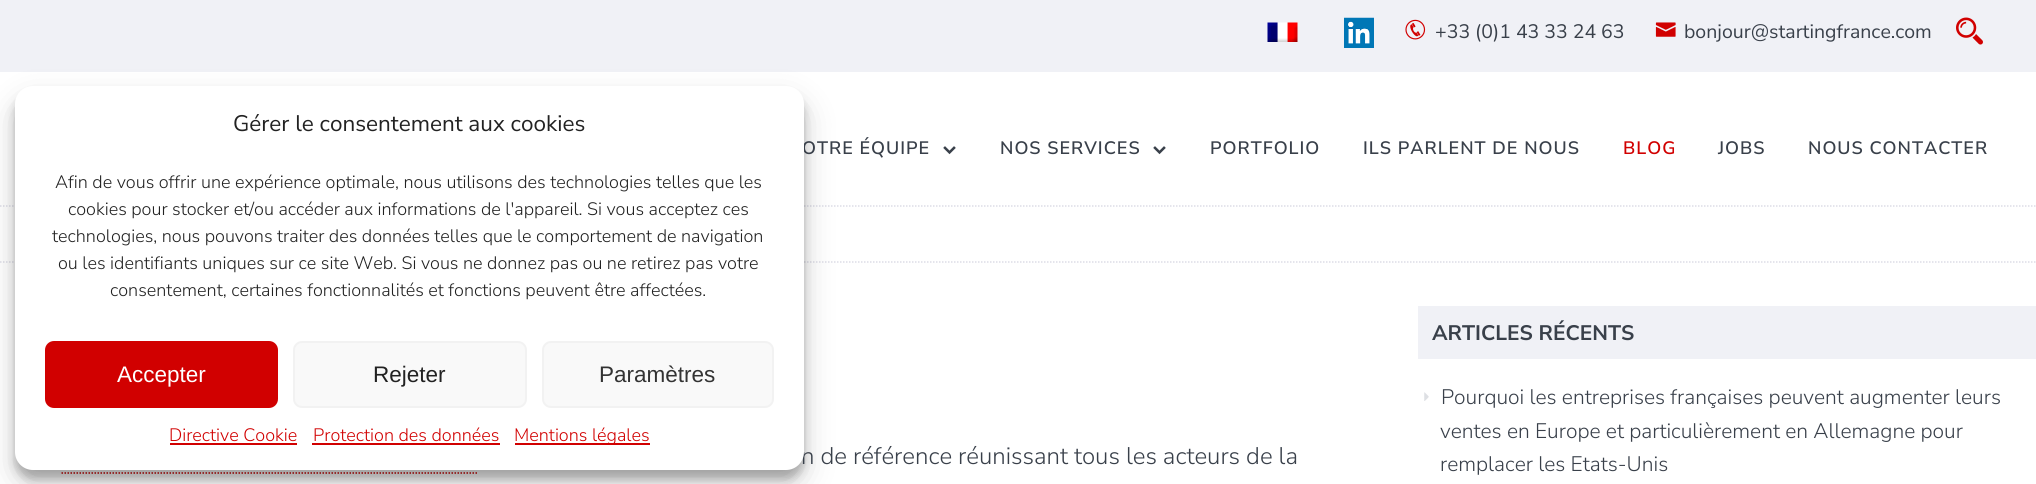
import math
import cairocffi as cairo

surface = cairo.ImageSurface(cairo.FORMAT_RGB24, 2036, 484)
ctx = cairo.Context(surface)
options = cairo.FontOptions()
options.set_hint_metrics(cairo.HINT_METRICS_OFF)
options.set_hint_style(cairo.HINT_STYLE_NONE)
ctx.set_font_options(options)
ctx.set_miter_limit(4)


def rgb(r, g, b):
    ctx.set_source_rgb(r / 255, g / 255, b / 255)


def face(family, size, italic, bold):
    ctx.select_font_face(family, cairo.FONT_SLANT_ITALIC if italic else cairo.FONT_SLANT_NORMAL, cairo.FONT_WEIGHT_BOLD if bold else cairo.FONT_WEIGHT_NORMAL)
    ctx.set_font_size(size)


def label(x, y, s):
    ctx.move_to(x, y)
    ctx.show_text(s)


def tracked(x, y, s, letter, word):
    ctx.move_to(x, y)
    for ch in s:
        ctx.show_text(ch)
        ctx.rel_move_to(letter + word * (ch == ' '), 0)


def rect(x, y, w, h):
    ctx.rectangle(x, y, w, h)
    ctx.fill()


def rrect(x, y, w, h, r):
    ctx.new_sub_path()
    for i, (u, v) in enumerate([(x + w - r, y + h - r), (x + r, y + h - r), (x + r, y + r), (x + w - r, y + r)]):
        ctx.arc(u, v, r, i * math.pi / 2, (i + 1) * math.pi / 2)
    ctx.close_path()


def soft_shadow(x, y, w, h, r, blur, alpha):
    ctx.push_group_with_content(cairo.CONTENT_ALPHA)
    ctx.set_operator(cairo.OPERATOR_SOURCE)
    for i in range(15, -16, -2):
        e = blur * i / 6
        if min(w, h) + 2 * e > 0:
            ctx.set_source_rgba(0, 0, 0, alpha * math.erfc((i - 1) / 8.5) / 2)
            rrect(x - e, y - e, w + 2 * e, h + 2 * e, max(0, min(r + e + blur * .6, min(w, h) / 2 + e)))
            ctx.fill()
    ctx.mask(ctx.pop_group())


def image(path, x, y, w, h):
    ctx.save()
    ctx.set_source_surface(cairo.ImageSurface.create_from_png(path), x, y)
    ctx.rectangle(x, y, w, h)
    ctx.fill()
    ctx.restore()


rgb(255, 255, 255)
ctx.paint()
ctx.new_path()
ctx.move_to(0, 206)
ctx.line_to(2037, 206)
rgb(221, 220, 230)
ctx.set_line_width(1.5)
ctx.set_dash([1.5, 1.5])
ctx.stroke()
ctx.new_path()
ctx.move_to(0, 262)
ctx.line_to(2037, 262)
ctx.stroke()
ctx.new_path()
ctx.move_to(61.5, 473)
ctx.line_to(478.5, 473)
rgb(209, 0, 0)
ctx.stroke()
rgb(0, 0, 0)
soft_shadow(15, 95, 789, 384, 18, 4.5, 0.23)
rgb(240, 241, 246)
rect(0, 0, 2036, 72)
rgb(0, 0, 0)
soft_shadow(15, 101, 789, 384, 18, 15, 0.19)
face('Nunito Sans SemiBold', 18, 0, 0)
rgb(57, 64, 74)
tracked(802, 154, 'OTRE ÉQUIPE', 1, 0)
face('Nunito Sans Light', 24, 0, 0)
label(801, 464, 'n de référence réunissant tous les acteurs de la')
rgb(255, 255, 255)
rrect(15, 86, 789, 384, 18)
ctx.fill()
face('Nunito Sans', 22.5, 0, 0)
rgb(34, 34, 34)
label(233, 131, 'Gérer le consentement aux cookies')
face('Nunito Sans Light', 18, 0, 0)
label(55, 188, 'Afin de vous offrir une expérience optimale, nous utilisons des technologies telles que les')
label(68, 215, 'cookies pour stocker et/ou accéder aux informations de l\'appareil. Si vous acceptez ces')
label(52, 242, 'technologies, nous pouvons traiter des données telles que le comportement de navigation')
label(58, 269, 'ou les identifiants uniques sur ce site Web. Si vous ne donnez pas ou ne retirez pas votre')
label(110, 296, 'consentement, certaines fonctionnalités et fonctions peuvent être affectées.')
rgb(209, 0, 0)
rrect(46, 342, 231, 65, 8)
ctx.fill_preserve()
ctx.set_line_width(2)
ctx.set_dash([])
ctx.stroke()
face('Liberation Sans', 22.5, 0, 0)
rgb(255, 255, 255)
label(117, 382, 'Accepter')
rgb(249, 249, 249)
rrect(294, 342, 232, 65, 8)
ctx.fill_preserve()
rgb(242, 242, 242)
ctx.stroke()
rgb(34, 34, 34)
label(373, 382, 'Rejeter')
rgb(249, 249, 249)
rrect(543, 342, 230, 65, 8)
ctx.fill_preserve()
rgb(242, 242, 242)
ctx.stroke()
rgb(51, 51, 51)
label(599, 382, 'Paramètres')
face('Nunito Sans Light', 18, 0, 0)
rgb(209, 0, 0)
label(169, 441, 'Directive Cookie')
rect(170, 443, 127, 2)
label(313, 441, 'Protection des données')
rect(312, 443, 188, 2)
rect(515, 443, 135, 2)
label(514, 441, 'Mentions légales')
image('image0.png', 1267, 22, 31, 20)
image('image1.png', 1344, 17, 30, 31)
image('image2.png', 1405, 19, 21, 21)
face('Nunito Sans', 19.5, 0, 0)
rgb(57, 64, 74)
label(1435, 38, '+33 (0)1 43 33 24 63')
image('image3.png', 1655, 22, 21, 15)
label(1684, 38, 'bonjour@startingfrance.com')
image('image4.png', 1956, 17, 27, 28)
image('image5.png', 943, 146, 13, 9)
face('Nunito Sans SemiBold', 18, 0, 0)
tracked(1000, 154, 'NOS SERVICES', 1, 0)
image('image5.png', 1153, 146, 13, 9)
tracked(1210, 154, 'PORTFOLIO', 1, 0)
tracked(1363, 154, 'ILS PARLENT DE NOUS', 1, 0)
rgb(209, 0, 0)
tracked(1623, 154, 'BLOG', 1, 0)
rgb(57, 64, 74)
tracked(1718, 154, 'JOBS', 1, 0)
tracked(1808, 154, 'NOUS CONTACTER', 1, 0)
rgb(240, 241, 246)
rect(1418, 306, 618, 53)
face('Nunito Sans', 21, 0, 1)
rgb(57, 64, 74)
label(1432, 340, 'ARTICLES RÉCENTS')
image('image6.png', 1424, 392, 5, 9)
face('Nunito Sans Light', 21, 0, 0)
label(1441, 404, 'Pourquoi les entreprises françaises peuvent augmenter leurs')
label(1440, 438, 'ventes en Europe et particulièrement en Allemagne pour')
label(1440, 471, 'remplacer les Etats-Unis')
surface.write_to_png('render.png')
